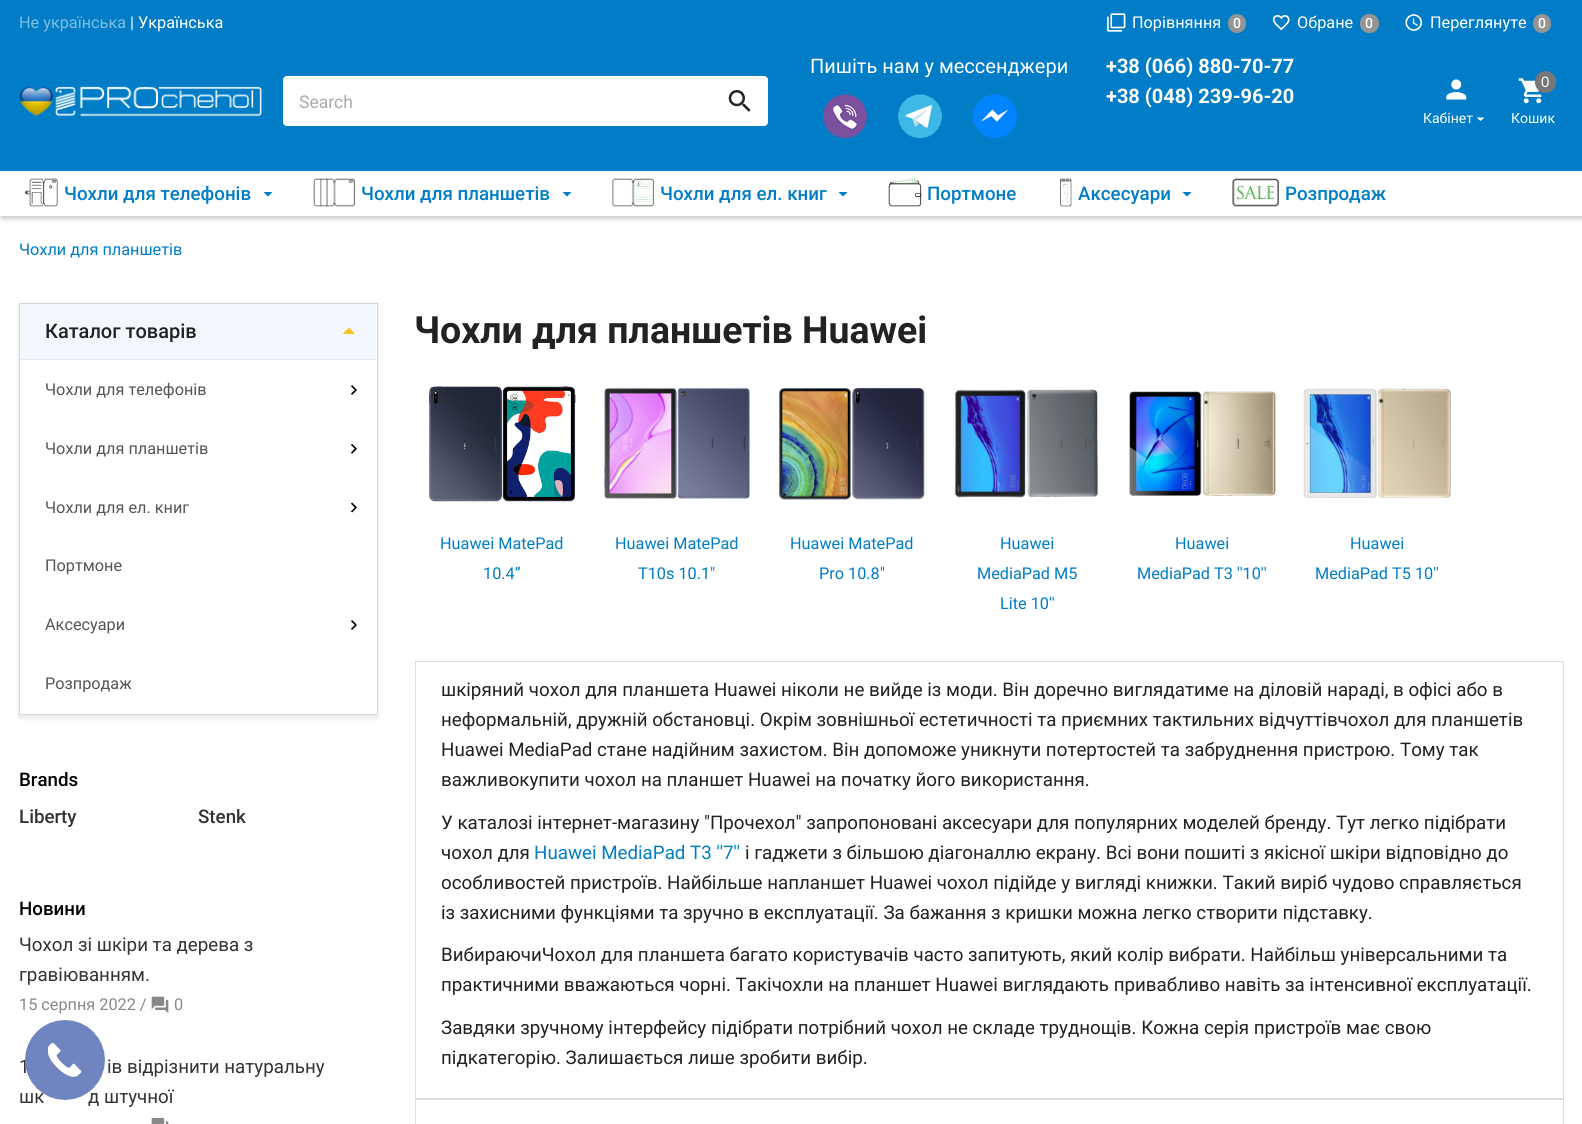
import math
import cairocffi as cairo

surface = cairo.ImageSurface(cairo.FORMAT_RGB24, 1582, 1124)
ctx = cairo.Context(surface)
options = cairo.FontOptions()
options.set_hint_metrics(cairo.HINT_METRICS_OFF)
options.set_hint_style(cairo.HINT_STYLE_NONE)
ctx.set_font_options(options)
ctx.set_miter_limit(4)


def rgb(r, g, b):
    ctx.set_source_rgb(r / 255, g / 255, b / 255)


def face(family, size, italic, bold):
    ctx.select_font_face(family, cairo.FONT_SLANT_ITALIC if italic else cairo.FONT_SLANT_NORMAL, cairo.FONT_WEIGHT_BOLD if bold else cairo.FONT_WEIGHT_NORMAL)
    ctx.set_font_size(size)


def label(x, y, s):
    ctx.move_to(x, y)
    ctx.show_text(s)


def rect(x, y, w, h):
    ctx.rectangle(x, y, w, h)
    ctx.fill()


def rrect(x, y, w, h, r):
    ctx.new_sub_path()
    for i, (u, v) in enumerate([(x + w - r, y + h - r), (x + r, y + h - r), (x + r, y + r), (x + w - r, y + r)]):
        ctx.arc(u, v, r, i * math.pi / 2, (i + 1) * math.pi / 2)
    ctx.close_path()


def soft_shadow(x, y, w, h, r, blur, alpha):
    ctx.push_group_with_content(cairo.CONTENT_ALPHA)
    ctx.set_operator(cairo.OPERATOR_SOURCE)
    for i in range(15, -16, -2):
        e = blur * i / 6
        if min(w, h) + 2 * e > 0:
            ctx.set_source_rgba(0, 0, 0, alpha * math.erfc((i - 1) / 8.5) / 2)
            rrect(x - e, y - e, w + 2 * e, h + 2 * e, max(0, min(r + e + blur * .6, min(w, h) / 2 + e)))
            ctx.fill()
    ctx.mask(ctx.pop_group())


def image(path, x, y, w, h):
    ctx.save()
    ctx.set_source_surface(cairo.ImageSurface.create_from_png(path), x, y)
    ctx.rectangle(x, y, w, h)
    ctx.fill()
    ctx.restore()


rgb(255, 255, 255)
ctx.paint()
rgb(0, 0, 0)
soft_shadow(1, 3, 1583, 216, 0, 2.5, 0.2)
rgb(0, 125, 198)
rect(0, 0, 1582, 171)
face('Roboto', 16.25, 0, 0)
rgb(128, 190, 227)
label(19, 28, 'Не українська')
rgb(255, 255, 255)
label(130, 28, '| Українська')
image('image0.png', 1107, 13, 19, 19)
label(1132, 28, 'Порівняння')
rgb(149, 149, 149)
rrect(1228, 14, 18, 19, 9)
ctx.fill()
face('Roboto Medium', 14, 0, 0)
rgb(255, 255, 255)
label(1233, 28, '0')
image('image1.png', 1272, 15, 18, 16)
face('Roboto', 16.25, 0, 0)
label(1297, 28, 'Обране')
rgb(149, 149, 149)
rrect(1360, 14, 19, 19, 9)
ctx.fill()
face('Roboto Medium', 14, 0, 0)
rgb(255, 255, 255)
label(1365, 28, '0')
image('image2.png', 1405, 14, 18, 17)
face('Roboto', 16.25, 0, 0)
label(1430, 28, 'Переглянуте')
rgb(149, 149, 149)
rrect(1533, 14, 18, 19, 9)
ctx.fill()
face('Roboto Medium', 14, 0, 0)
rgb(255, 255, 255)
label(1538, 28, '0')
image('image3.png', 19, 86, 243, 31)
rrect(283, 76, 485, 50, 4)
ctx.fill()
rgb(236, 236, 236)
ctx.new_path()
ctx.move_to(286, 79)
ctx.line_to(764, 79)
ctx.curve_to(765, 79, 766, 80, 766, 81)
ctx.curve_to(766, 79, 765, 78, 764, 78)
ctx.line_to(286, 78)
ctx.curve_to(285, 78, 284, 79, 284, 81)
ctx.curve_to(284, 80, 285, 79, 286, 79)
ctx.close_path()
ctx.fill()
face('Roboto', 17.5, 0, 0)
rgb(170, 170, 170)
label(299, 108, 'Search')
image('image4.png', 728, 90, 23, 22)
face('Roboto', 20, 0, 0)
rgb(255, 255, 255)
label(810, 73, 'Пишіть нам у мессенджери')
image('image5.png', 823, 94, 44, 44)
image('image6.png', 898, 94, 44, 44)
image('image7.png', 973, 94, 44, 44)
face('Roboto', 20, 0, 1)
label(1106, 73, '+38 (066) 880-70-77')
label(1106, 103, '+38 (048) 239-96-20')
image('image8.png', 1446, 79, 21, 21)
face('Roboto', 14, 0, 0)
label(1423, 123, 'Кабінет')
ctx.new_path()
ctx.move_to(1476.5, 117.5)
ctx.line_to(1484.5, 117.5)
ctx.line_to(1480.5, 121)
ctx.close_path()
ctx.fill()
image('image9.png', 1518, 78, 24, 26)
rgb(119, 119, 119)
rrect(1535, 71, 21, 22, 10.5)
ctx.fill()
face('Liberation Sans', 15, 0, 0)
rgb(255, 255, 255)
label(1541, 87, '0')
face('Roboto', 14, 0, 0)
label(1511, 123, 'Кошик')
rect(0, 171, 1582, 45)
image('image10.png', 25, 178, 33, 29)
face('Roboto Medium', 18.75, 0, 0)
rgb(0, 125, 198)
label(64, 200, 'Чохли для телефонів')
ctx.new_path()
ctx.move_to(263.5, 192)
ctx.line_to(272.5, 192)
ctx.line_to(268, 196.5)
ctx.close_path()
ctx.fill()
image('image11.png', 313, 178, 42, 29)
label(361, 200, 'Чохли для планшетів')
ctx.new_path()
ctx.move_to(562.5, 192)
ctx.line_to(571.5, 192)
ctx.line_to(567, 196.5)
ctx.close_path()
ctx.fill()
image('image12.png', 612, 178, 42, 29)
label(660, 200, 'Чохли для ел. книг')
ctx.new_path()
ctx.move_to(838.5, 192)
ctx.line_to(847.5, 192)
ctx.line_to(843, 196.5)
ctx.close_path()
ctx.fill()
image('image13.png', 888, 178, 34, 29)
label(927, 200, 'Портмоне')
image('image14.png', 1060, 178, 12, 29)
label(1078, 200, 'Аксесуари')
ctx.new_path()
ctx.move_to(1182.5, 192)
ctx.line_to(1191.5, 192)
ctx.line_to(1187, 196.5)
ctx.close_path()
ctx.fill()
image('image15.png', 1232, 178, 47, 29)
label(1285, 200, 'Розпродаж')
face('Roboto', 16.25, 0, 0)
label(19, 255, 'Чохли для планшетів')
ctx.save()
ctx.set_fill_rule(cairo.FILL_RULE_EVEN_ODD)
ctx.new_path()
ctx.move_to(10, 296)
ctx.line_to(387, 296)
ctx.line_to(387, 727)
ctx.line_to(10, 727)
ctx.close_path()
ctx.move_to(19, 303)
ctx.line_to(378, 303)
ctx.line_to(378, 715)
ctx.line_to(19, 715)
ctx.close_path()
ctx.clip()
rgb(0, 0, 0)
soft_shadow(19, 305, 359, 413, 0, 2.5, 0.1)
ctx.restore()
ctx.rectangle(19.5, 303.5, 358, 411)
rgb(205, 217, 223)
ctx.set_line_width(1)
ctx.stroke()
rgb(242, 248, 253)
rect(20, 304, 356, 55)
rgb(233, 233, 233)
rect(20, 359, 356, 1)
face('Roboto Medium', 20, 0, 0)
rgb(34, 34, 34)
label(45, 338, 'Каталог товарів')
rgb(255, 193, 32)
ctx.new_path()
ctx.move_to(342.5, 334)
ctx.line_to(349, 327.5)
ctx.line_to(355, 334)
ctx.close_path()
ctx.fill()
face('Roboto', 16.25, 0, 0)
rgb(85, 85, 85)
label(45, 395, 'Чохли для телефонів')
image('image16.png', 351, 385, 6, 10)
label(45, 454, 'Чохли для планшетів')
image('image17.png', 351, 443, 6, 11)
label(45, 513, 'Чохли для ел. книг')
image('image18.png', 351, 502, 6, 11)
label(45, 571, 'Портмоне')
label(45, 630, 'Аксесуари')
image('image16.png', 351, 620, 6, 10)
label(45, 689, 'Розпродаж')
face('Roboto Medium', 18.75, 0, 0)
rgb(0, 0, 0)
label(19, 786, 'Brands')
rgb(51, 51, 51)
label(19, 823, 'Liberty')
label(198, 823, 'Stenk')
rgb(0, 0, 0)
label(19, 915, 'Новини')
face('Roboto', 18.75, 0, 0)
rgb(51, 51, 51)
label(19, 951, 'Чохол зі шкіри та дерева з')
label(19, 981, 'гравіюванням.')
face('Roboto', 16.25, 0, 0)
rgb(136, 136, 136)
label(19, 1010, '15 серпня 2022 /')
image('image19.png', 151, 996, 18, 18)
label(174, 1010, '0')
face('Roboto', 18.75, 0, 0)
rgb(51, 51, 51)
label(19, 1073, '1')
label(107, 1073, 'ів відрізнити натуральну')
label(19, 1103, 'шк')
label(88, 1103, 'д штучної')
image('image20.png', 151, 1117, 18, 7)
face('Roboto', 37.5, 0, 1)
rgb(34, 34, 34)
label(414, 343, 'Чохли для планшетів Huawei')
image('image21.png', 429, 386, 147, 116)
face('Roboto', 16.25, 0, 0)
rgb(0, 125, 198)
label(440, 549, 'Huawei MatePad')
label(483, 579, '10.4”')
image('image22.png', 604, 387, 146, 112)
label(615, 549, 'Huawei MatePad')
label(638, 579, 'T10s 10.1"')
image('image23.png', 778, 387, 147, 113)
label(790, 549, 'Huawei MatePad')
label(819, 579, 'Pro 10.8"')
image('image24.png', 954, 389, 144, 109)
label(1000, 549, 'Huawei')
label(977, 579, 'MediaPad M5')
label(1000, 609, 'Lite 10\'\'')
image('image25.png', 1129, 391, 147, 105)
label(1175, 549, 'Huawei')
label(1137, 579, 'MediaPad T3 \'\'10\'\'')
image('image26.png', 1303, 388, 148, 110)
label(1350, 549, 'Huawei')
label(1315, 579, 'MediaPad T5 10\'\'')
rgb(221, 221, 221)
rect(415, 661, 1149, 1)
rect(1563, 661, 1, 438)
rect(415, 1098, 1149, 2)
rect(415, 661, 1, 463)
face('Roboto', 18.75, 0, 0)
rgb(34, 34, 34)
label(441, 696, 'шкіряний чохол для планшета Huawei ніколи не вийде із моди. Він доречно виглядатиме на діловій нараді, в офісі або в')
label(441, 726, 'неформальній, дружній обстановці. Окрім зовнішньої естетичності та приємних тактильних відчуттівчохол для планшетів')
label(441, 756, 'Huawei MediaPad стане надійним захистом. Він допоможе уникнути потертостей та забруднення пристрою. Тому так')
label(441, 786, 'важливокупити чохол на планшет Huawei на початку його використання.')
label(441, 829, 'У каталозі інтернет-магазину "Прочехол" запропоновані аксесуари для популярних моделей бренду. Тут легко підібрати')
label(441, 859, 'чохол для')
rgb(0, 125, 198)
label(534, 859, 'Huawei MediaPad T3 \'\'7\'\'')
rgb(34, 34, 34)
label(745, 859, 'і гаджети з більшою діагоналлю екрану. Всі вони пошиті з якісної шкіри відповідно до')
label(441, 889, 'особливостей пристроїв. Найбільше напланшет Huawei чохол підійде у вигляді книжки. Такий виріб чудово справляється')
label(441, 919, 'із захисними функціями та зручно в експлуатації. За бажання з кришки можна легко створити підставку.')
label(441, 961, 'ВибираючиЧохол для планшета багато користувачів часто запитують, який колір вибрати. Найбільш універсальними та')
label(441, 991, 'практичними вважаються чорні. Такічохли на планшет Huawei виглядають привабливо навіть за інтенсивної експлуатації.')
label(441, 1034, 'Завдяки зручному інтерфейсу підібрати потрібний чохол не складе труднощів. Кожна серія пристроїв має свою')
label(441, 1064, 'підкатегорію. Залишається лише зробити вибір.')
rgb(221, 221, 221)
rect(1563, 1099, 1, 25)
image('image27.png', 25, 1020, 80, 80)
surface.write_to_png('render.png')
